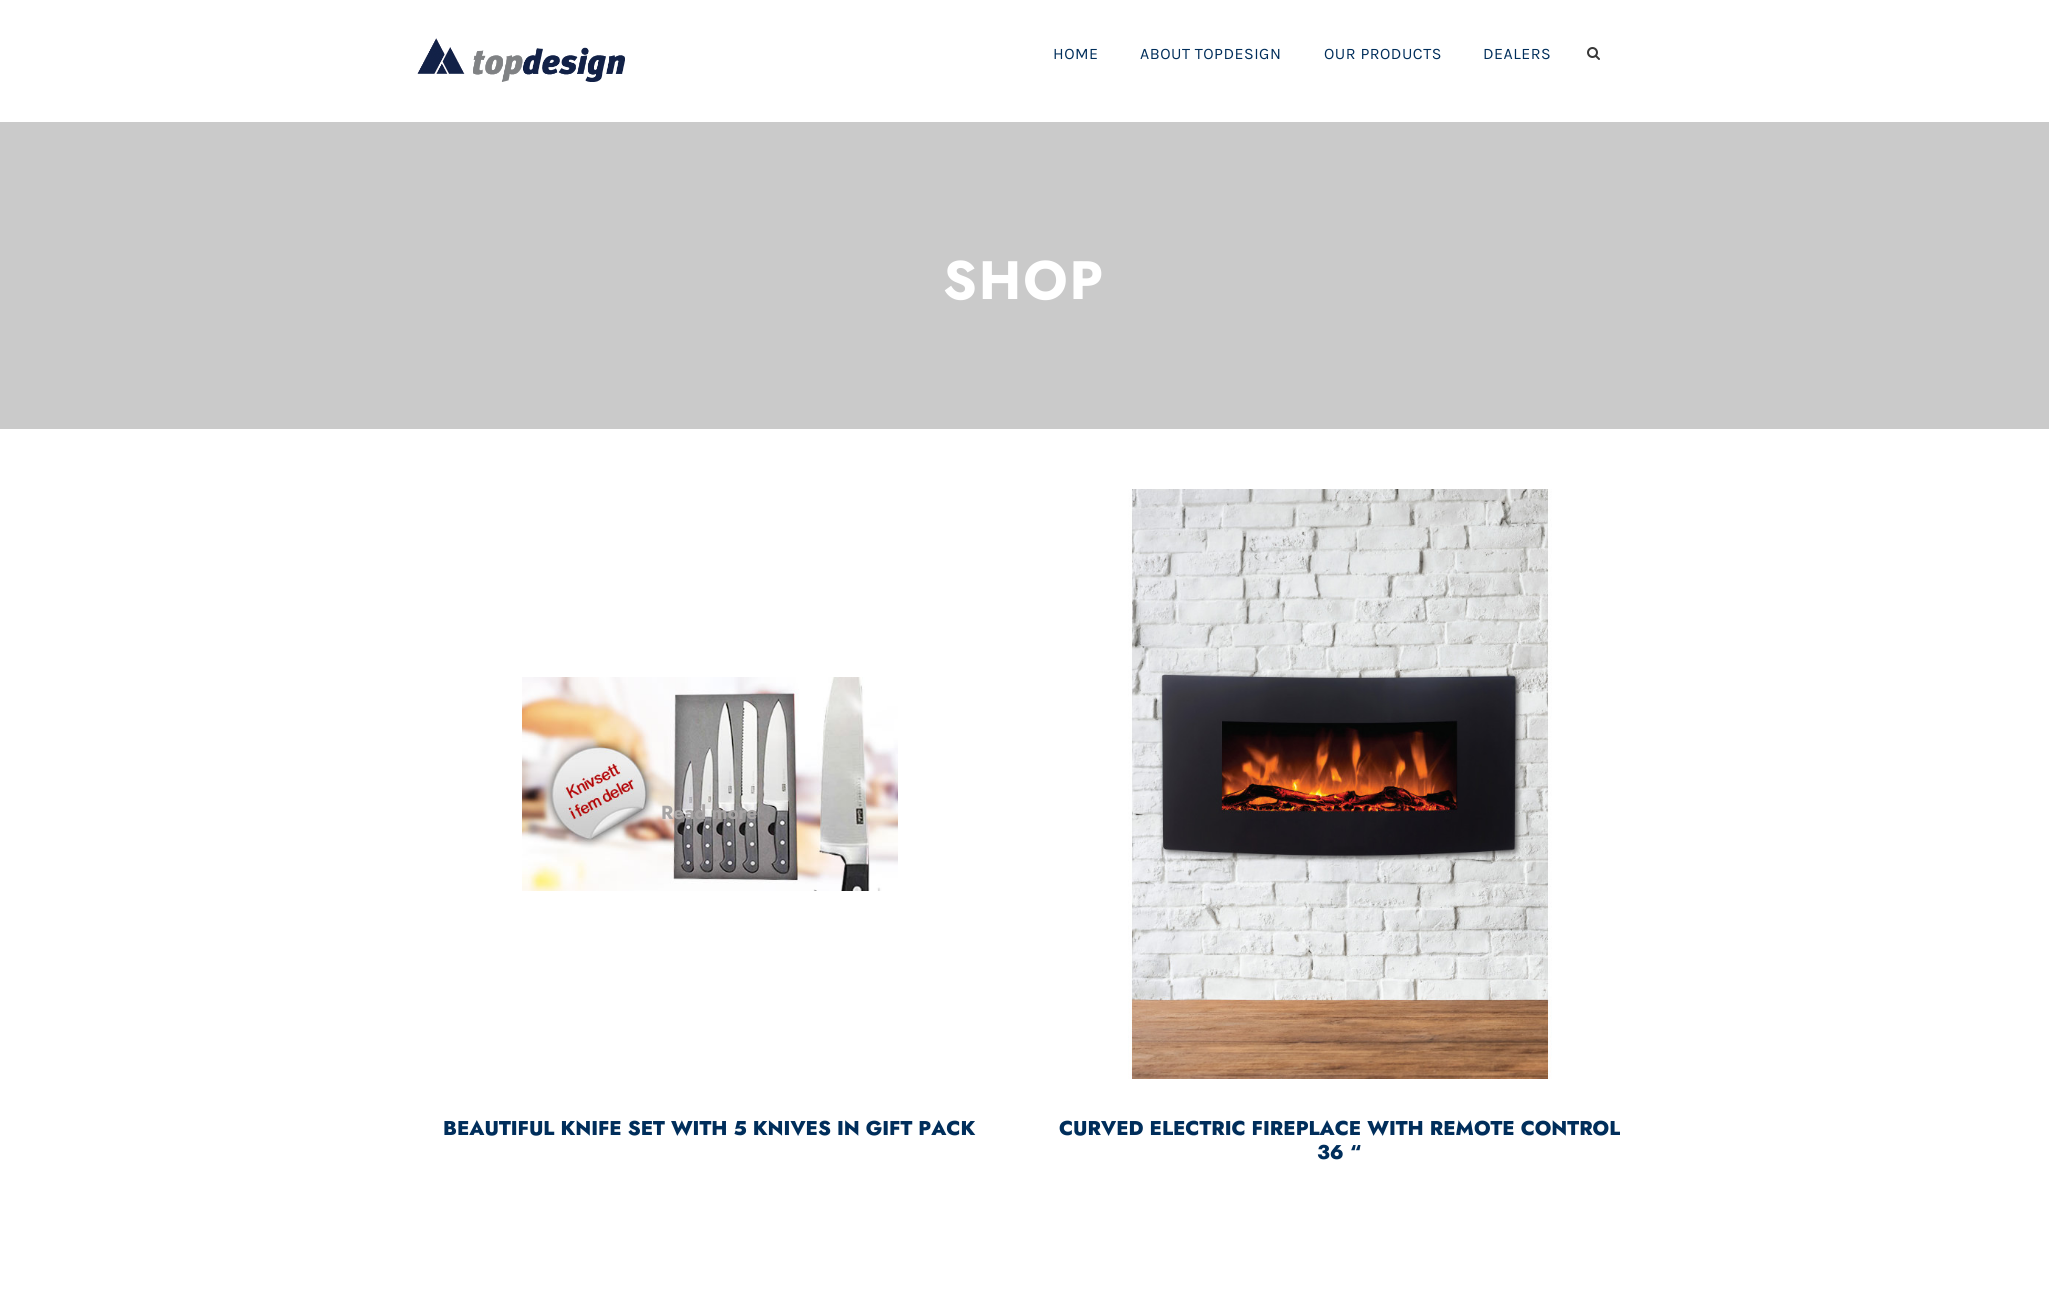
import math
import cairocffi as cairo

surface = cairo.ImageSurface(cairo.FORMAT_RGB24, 2049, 1307)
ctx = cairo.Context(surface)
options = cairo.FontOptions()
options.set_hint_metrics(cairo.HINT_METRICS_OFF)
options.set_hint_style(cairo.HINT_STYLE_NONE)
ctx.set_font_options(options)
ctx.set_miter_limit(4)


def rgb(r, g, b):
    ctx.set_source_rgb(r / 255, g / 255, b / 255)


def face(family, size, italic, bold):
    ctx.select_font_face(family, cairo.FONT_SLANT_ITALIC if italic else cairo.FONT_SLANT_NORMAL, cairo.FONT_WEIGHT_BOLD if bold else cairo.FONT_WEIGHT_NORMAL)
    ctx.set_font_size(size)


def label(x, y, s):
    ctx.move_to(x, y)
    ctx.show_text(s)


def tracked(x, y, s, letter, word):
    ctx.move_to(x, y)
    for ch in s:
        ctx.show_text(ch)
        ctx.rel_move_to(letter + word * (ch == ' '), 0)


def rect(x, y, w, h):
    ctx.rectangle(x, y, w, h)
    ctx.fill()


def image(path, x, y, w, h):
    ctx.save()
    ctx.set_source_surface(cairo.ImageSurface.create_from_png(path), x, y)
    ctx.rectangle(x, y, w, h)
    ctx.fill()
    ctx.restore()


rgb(255, 255, 255)
ctx.paint()
image('image0.png', 417, 38, 208, 44)
face('Karla', 16, 0, 0)
rgb(0, 46, 91)
tracked(1053, 59, 'HOME', 0.5, 0)
tracked(1140, 59, 'ABOUT TOPDESIGN', 0.5, 0)
tracked(1324, 59, 'OUR PRODUCTS', 0.5, 0)
tracked(1483, 59, 'DEALERS', 0.5, 0)
image('image1.png', 1587, 47, 13, 13)
rgb(202, 202, 202)
rect(0, 122, 2049, 307)
face('Jost', 54, 0, 1)
rgb(255, 255, 255)
tracked(943, 299, 'SHOP', 2, 0)
image('image2.png', 522, 677, 376, 214)
face('Jost', 19, 0, 1)
rgb(167, 164, 164)
label(661, 819, 'Read more')
face('Jost ExtraBold', 20, 0, 0)
rgb(0, 46, 91)
label(443, 1135, 'BEAUTIFUL KNIFE SET WITH 5 KNIVES IN GIFT PACK')
image('image3.png', 1128, 489, 424, 590)
label(1059, 1135, 'CURVED ELECTRIC FIREPLACE WITH REMOTE CONTROL')
label(1317, 1159, '36 “')
surface.write_to_png('render.png')
